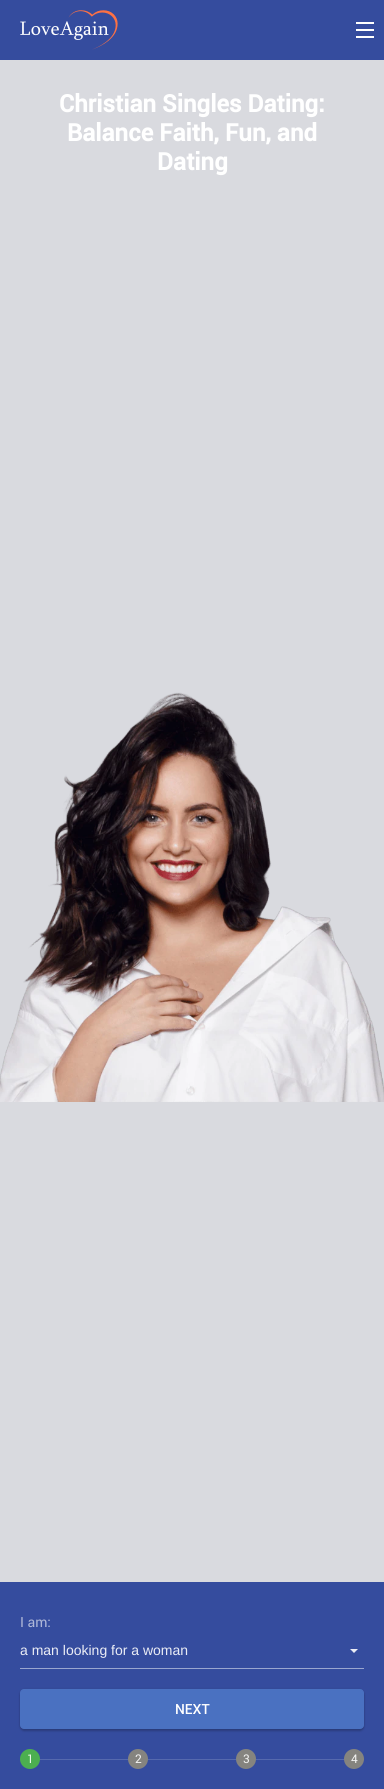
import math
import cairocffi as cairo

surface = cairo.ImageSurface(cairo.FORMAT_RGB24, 384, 1789)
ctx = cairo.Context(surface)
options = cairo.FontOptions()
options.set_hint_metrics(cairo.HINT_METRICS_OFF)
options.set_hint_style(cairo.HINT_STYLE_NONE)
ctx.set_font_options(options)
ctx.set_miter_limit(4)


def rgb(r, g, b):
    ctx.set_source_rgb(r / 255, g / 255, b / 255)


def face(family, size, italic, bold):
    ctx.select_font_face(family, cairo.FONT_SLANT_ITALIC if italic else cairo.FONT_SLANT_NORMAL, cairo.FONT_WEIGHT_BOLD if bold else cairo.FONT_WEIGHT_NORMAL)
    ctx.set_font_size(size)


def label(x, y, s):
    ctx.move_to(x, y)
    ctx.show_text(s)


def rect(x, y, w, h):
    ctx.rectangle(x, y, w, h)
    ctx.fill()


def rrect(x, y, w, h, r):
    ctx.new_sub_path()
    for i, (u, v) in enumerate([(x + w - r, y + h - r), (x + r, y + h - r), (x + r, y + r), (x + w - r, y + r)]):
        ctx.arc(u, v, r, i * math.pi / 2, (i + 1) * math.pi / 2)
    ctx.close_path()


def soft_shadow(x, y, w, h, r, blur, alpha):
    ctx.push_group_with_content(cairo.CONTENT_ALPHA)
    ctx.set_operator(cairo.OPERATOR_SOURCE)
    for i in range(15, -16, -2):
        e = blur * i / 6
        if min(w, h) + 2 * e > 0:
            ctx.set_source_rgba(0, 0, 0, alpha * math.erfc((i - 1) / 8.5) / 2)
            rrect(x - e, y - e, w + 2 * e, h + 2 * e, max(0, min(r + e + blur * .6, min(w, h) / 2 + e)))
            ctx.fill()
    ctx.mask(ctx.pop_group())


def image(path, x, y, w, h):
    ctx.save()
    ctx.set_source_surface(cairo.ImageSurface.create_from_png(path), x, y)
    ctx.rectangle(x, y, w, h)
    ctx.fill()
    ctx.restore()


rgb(217, 218, 223)
ctx.paint()
rgb(53, 76, 158)
rect(0, 0, 384, 60)
image('image0.png', 20, 10, 98, 40)
rgb(255, 255, 255)
rect(356, 29, 18, 2)
rect(356, 22, 18, 2)
rect(356, 36, 18, 2)
image('image1.png', 0, 692, 384, 410)
face('Roboto', 24, 0, 1)
label(59, 112, 'Christian Singles Dating:')
label(67, 141, 'Balance Faith, Fun, and')
label(157, 170, 'Dating')
rgb(53, 76, 158)
rect(0, 1582, 384, 207)
face('Roboto', 14, 0, 0)
rgb(174, 183, 216)
label(20, 1627, 'I am:')
rgb(154, 166, 207)
rect(20, 1668, 344, 1)
face('Liberation Sans', 14, 0, 0)
rgb(235, 237, 245)
label(20, 1655, 'a man looking for a woman')
ctx.new_path()
ctx.move_to(350, 1649)
ctx.line_to(358, 1649)
ctx.line_to(354, 1653)
ctx.close_path()
ctx.fill()
rgb(0, 0, 0)
soft_shadow(20, 1691, 344, 40, 4, 1, 0.2)
soft_shadow(20, 1689, 344, 40, 4, 1, 0.1)
rgb(74, 113, 193)
rrect(20.5, 1689.5, 343, 39, 3.5)
ctx.fill_preserve()
ctx.set_line_width(1)
ctx.stroke()
face('Roboto Medium', 14, 0, 0)
rgb(255, 255, 255)
label(175, 1714, 'NEXT')
rgb(85, 105, 174)
rect(20, 1759, 344, 1)
rgb(76, 175, 80)
ctx.new_path()
ctx.arc(30, 1759, 10, 0, 2 * math.pi)
ctx.fill()
face('Roboto', 12, 0, 0)
rgb(237, 247, 238)
label(27, 1763, '1')
rgb(133, 132, 127)
ctx.new_path()
ctx.arc(138, 1759, 10, 0, 2 * math.pi)
ctx.fill()
rgb(243, 243, 242)
label(135, 1763, '2')
rgb(133, 132, 127)
ctx.new_path()
ctx.arc(246, 1759, 10, 0, 2 * math.pi)
ctx.fill()
rgb(243, 243, 242)
label(243, 1763, '3')
rgb(133, 132, 127)
ctx.new_path()
ctx.arc(354, 1759, 10, 0, 2 * math.pi)
ctx.fill()
rgb(243, 243, 242)
label(351, 1763, '4')
surface.write_to_png('render.png')
